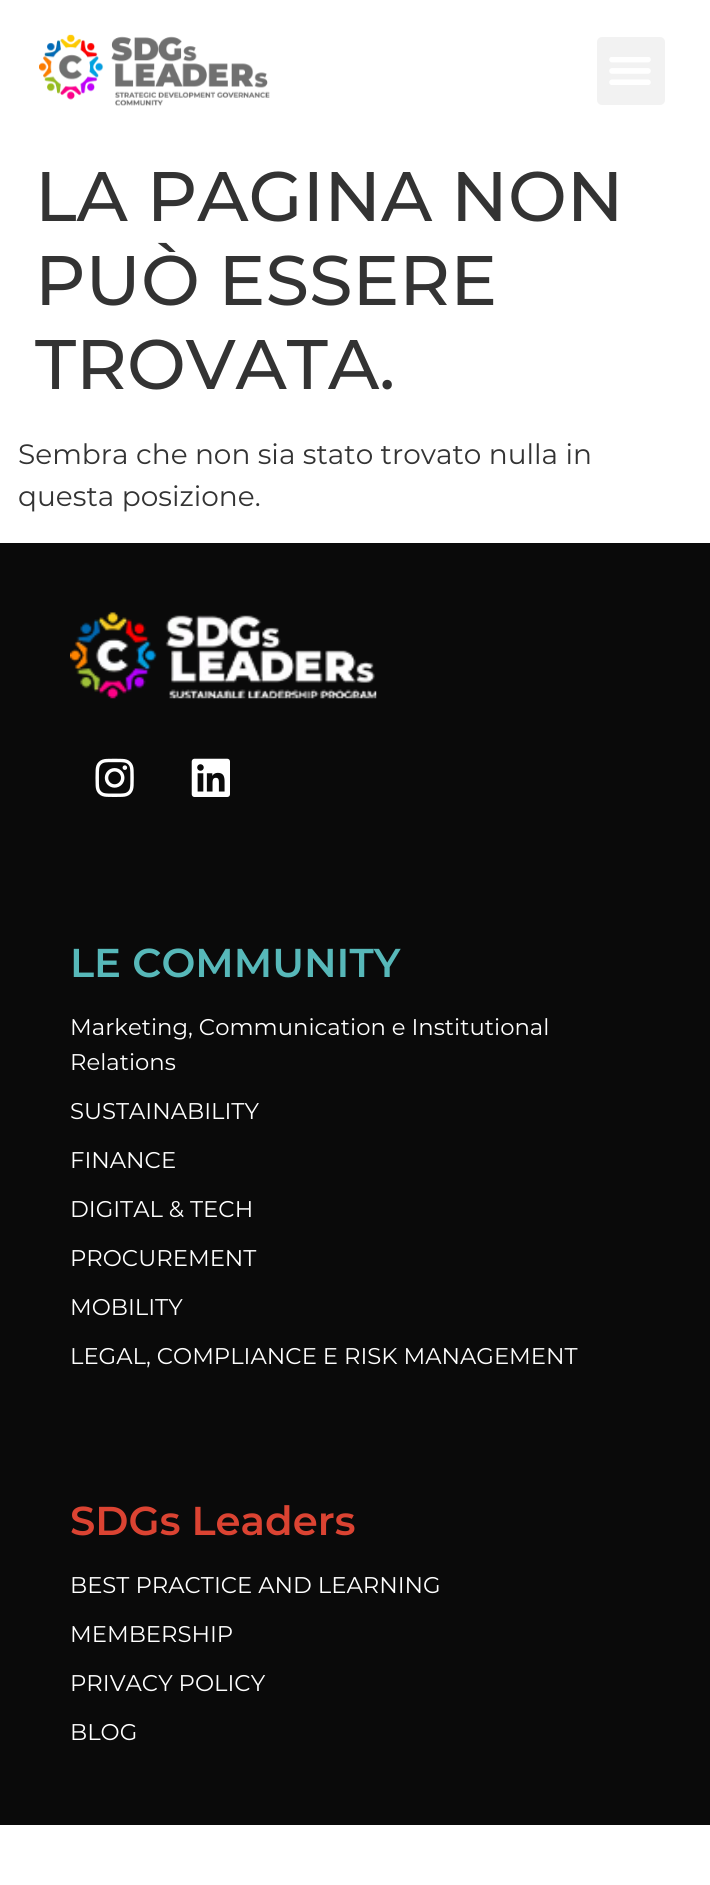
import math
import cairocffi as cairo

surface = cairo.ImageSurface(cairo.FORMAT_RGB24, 710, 1885)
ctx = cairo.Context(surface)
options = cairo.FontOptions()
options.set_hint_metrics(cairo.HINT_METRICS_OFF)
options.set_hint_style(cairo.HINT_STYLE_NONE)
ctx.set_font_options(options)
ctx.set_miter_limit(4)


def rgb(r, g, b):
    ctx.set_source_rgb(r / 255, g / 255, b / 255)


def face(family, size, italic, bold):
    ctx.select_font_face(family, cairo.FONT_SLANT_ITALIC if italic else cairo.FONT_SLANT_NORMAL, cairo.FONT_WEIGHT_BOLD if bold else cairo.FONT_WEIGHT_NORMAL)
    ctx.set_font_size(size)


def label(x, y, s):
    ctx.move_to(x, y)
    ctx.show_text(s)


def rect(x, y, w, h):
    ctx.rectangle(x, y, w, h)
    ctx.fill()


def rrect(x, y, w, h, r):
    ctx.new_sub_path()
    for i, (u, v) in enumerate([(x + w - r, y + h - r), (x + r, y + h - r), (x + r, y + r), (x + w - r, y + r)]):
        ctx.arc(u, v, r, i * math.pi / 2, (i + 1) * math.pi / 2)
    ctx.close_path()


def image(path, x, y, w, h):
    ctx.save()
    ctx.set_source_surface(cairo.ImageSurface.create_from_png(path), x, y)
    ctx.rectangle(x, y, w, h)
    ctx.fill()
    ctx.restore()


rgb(255, 255, 255)
ctx.paint()
image('image0.png', 39, 34, 231, 72)
rgb(242, 242, 242)
rrect(597, 37, 68, 68, 5)
ctx.fill()
image('image1.png', 609, 57, 42, 28)
face('Montserrat Medium', 70, 0, 0)
rgb(51, 51, 51)
label(35, 221, 'LA PAGINA NON')
label(35, 305, 'PUÒ ESSERE')
label(35, 389, 'TROVATA.')
face('Montserrat', 28, 0, 0)
label(18, 464, 'Sembra che non sia stato trovato nulla in')
label(18, 506, 'questa posizione.')
rgb(10, 10, 10)
rect(0, 543, 710, 1282)
image('image2.png', 70, 612, 307, 87)
image('image3.png', 95, 758, 39, 39)
image('image4.png', 191, 758, 39, 39)
face('Montserrat SemiBold', 40.25, 0, 0)
rgb(87, 184, 185)
label(70, 977, 'LE COMMUNITY')
face('Montserrat', 22.75, 0, 0)
rgb(255, 255, 255)
label(70, 1035, 'Marketing, Communication e Institutional')
label(70, 1070, 'Relations')
label(70, 1119, 'SUSTAINABILITY')
label(70, 1168, 'FINANCE')
label(70, 1217, 'DIGITAL & TECH')
label(70, 1266, 'PROCUREMENT')
label(70, 1315, 'MOBILITY')
label(70, 1364, 'LEGAL, COMPLIANCE E RISK MANAGEMENT')
face('Montserrat SemiBold', 40.25, 0, 0)
rgb(219, 67, 50)
label(70, 1535, 'SDGs Leaders')
face('Montserrat', 22.75, 0, 0)
rgb(255, 255, 255)
label(70, 1593, 'BEST PRACTICE AND LEARNING')
label(70, 1642, 'MEMBERSHIP')
label(70, 1691, 'PRIVACY POLICY')
label(70, 1740, 'BLOG')
surface.write_to_png('render.png')
